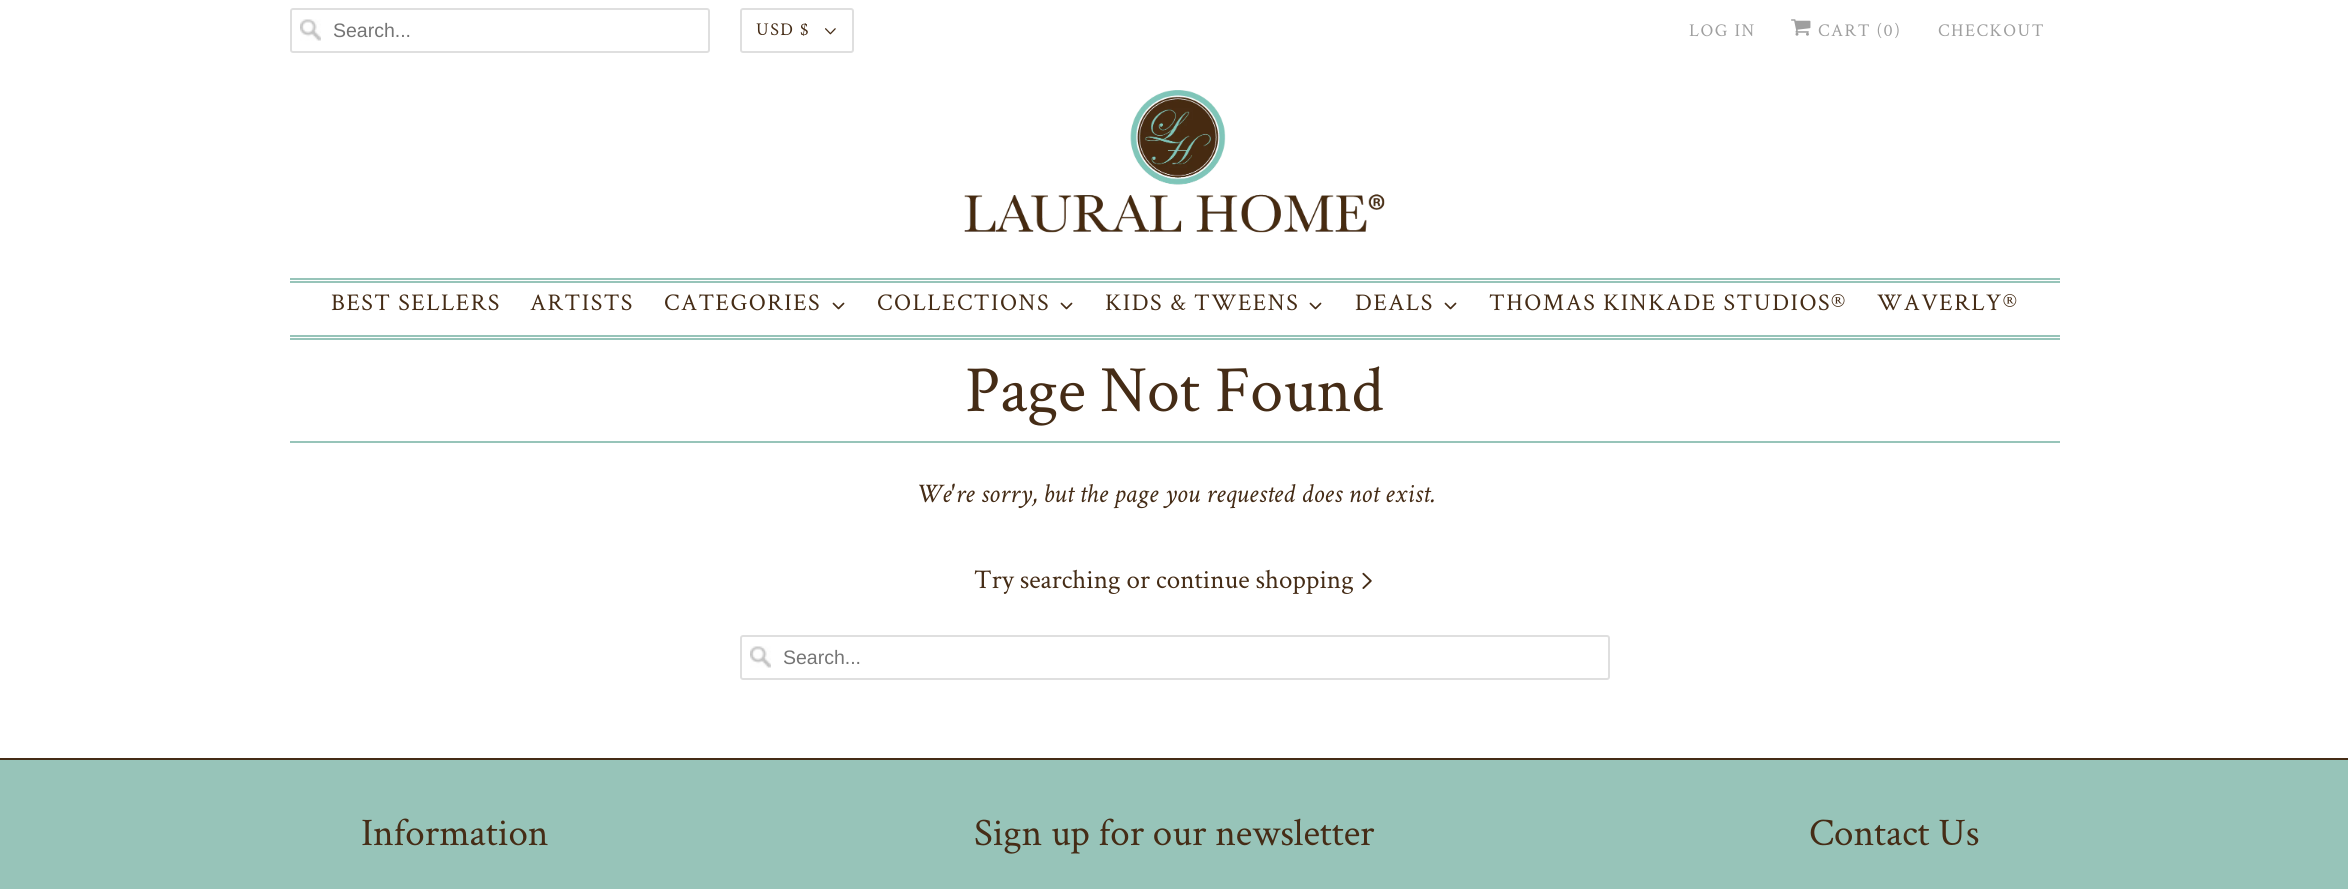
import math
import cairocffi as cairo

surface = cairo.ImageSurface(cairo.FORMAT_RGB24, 2348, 889)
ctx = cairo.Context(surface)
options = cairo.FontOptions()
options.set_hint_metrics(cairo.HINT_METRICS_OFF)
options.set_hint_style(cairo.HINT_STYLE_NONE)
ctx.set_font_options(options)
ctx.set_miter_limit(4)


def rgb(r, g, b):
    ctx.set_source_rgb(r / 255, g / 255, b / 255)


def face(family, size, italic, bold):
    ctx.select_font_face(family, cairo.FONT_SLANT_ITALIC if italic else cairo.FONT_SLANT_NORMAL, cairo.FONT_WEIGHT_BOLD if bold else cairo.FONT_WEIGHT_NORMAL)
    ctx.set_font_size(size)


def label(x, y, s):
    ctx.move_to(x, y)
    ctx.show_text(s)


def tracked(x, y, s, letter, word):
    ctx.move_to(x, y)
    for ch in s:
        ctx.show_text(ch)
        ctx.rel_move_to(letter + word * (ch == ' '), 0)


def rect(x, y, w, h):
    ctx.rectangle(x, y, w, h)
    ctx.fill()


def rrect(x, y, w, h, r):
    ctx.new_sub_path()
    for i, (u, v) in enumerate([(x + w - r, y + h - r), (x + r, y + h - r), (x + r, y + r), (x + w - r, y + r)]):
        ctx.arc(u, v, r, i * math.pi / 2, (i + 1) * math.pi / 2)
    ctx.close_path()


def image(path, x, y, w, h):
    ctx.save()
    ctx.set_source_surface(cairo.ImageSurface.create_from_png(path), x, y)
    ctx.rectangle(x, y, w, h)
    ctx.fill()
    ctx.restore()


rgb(255, 255, 255)
ctx.paint()
image('image0.png', 300, 19, 21, 22)
rrect(291, 9, 418, 43, 2)
rgb(223, 223, 223)
ctx.stroke()
face('Liberation Sans', 19.5, 0, 0)
rgb(117, 117, 117)
label(333, 37, 'Search...')
rrect(741, 9, 112, 43, 2)
rgb(223, 223, 223)
ctx.stroke()
face('Crimson Text', 18, 0, 0)
rgb(69, 44, 22)
tracked(756, 35, 'USD $', 1.5, 0)
image('image1.png', 825, 28, 11, 7)
rgb(159, 159, 159)
tracked(1689, 36, 'LOG IN', 1.5, 0)
image('image2.png', 1791, 19, 20, 17)
tracked(1818, 36, 'CART (0)', 1.5, 0)
tracked(1938, 36, 'CHECKOUT', 1.5, 0)
image('image3.png', 964, 90, 421, 143)
rgb(151, 196, 185)
rect(290, 278, 1770, 2)
rect(290, 281, 1770, 2)
rect(290, 335, 1770, 2)
rect(290, 338, 1770, 2)
face('Crimson Text', 24, 0, 0)
rgb(69, 44, 22)
tracked(331, 310, 'BEST SELLERS', 1.5, 0)
tracked(530, 310, 'ARTISTS', 1.5, 0)
tracked(664, 310, 'CATEGORIES', 1.5, 0)
image('image4.png', 832, 302, 13, 8)
tracked(877, 310, 'COLLECTIONS', 1.5, 0)
image('image4.png', 1060, 302, 13, 8)
tracked(1105, 310, 'KIDS & TWEENS', 1.5, 0)
image('image4.png', 1309, 302, 13, 8)
tracked(1355, 310, 'DEALS', 1.5, 0)
image('image4.png', 1444, 302, 13, 8)
tracked(1489, 310, 'THOMAS KINKADE STUDIOS®', 1.5, 0)
tracked(1877, 310, 'WAVERLY®', 1.5, 0)
rgb(151, 196, 185)
rect(290, 441, 1770, 2)
face('Crimson Text', 66, 0, 0)
rgb(69, 44, 22)
label(965, 411, 'Page Not Found')
face('Crimson Text', 27, 1, 0)
label(916, 502, 'We\'re sorry, but the page you requested does not exist.')
face('Crimson Text', 27, 0, 0)
label(974, 588, 'Try searching or continue shopping')
image('image5.png', 1362, 572, 10, 17)
image('image0.png', 750, 646, 21, 22)
rrect(741, 636, 868, 43, 2)
rgb(223, 223, 223)
ctx.stroke()
face('Liberation Sans', 19.5, 0, 0)
rgb(117, 117, 117)
label(783, 664, 'Search...')
rgb(151, 196, 185)
rect(0, 760, 2348, 129)
rgb(69, 44, 22)
rect(0, 758, 2348, 2)
face('Crimson Text', 39, 0, 0)
label(361, 845, 'Information')
label(974, 845, 'Sign up for our newsletter')
label(1809, 845, 'Contact Us')
surface.write_to_png('render.png')
